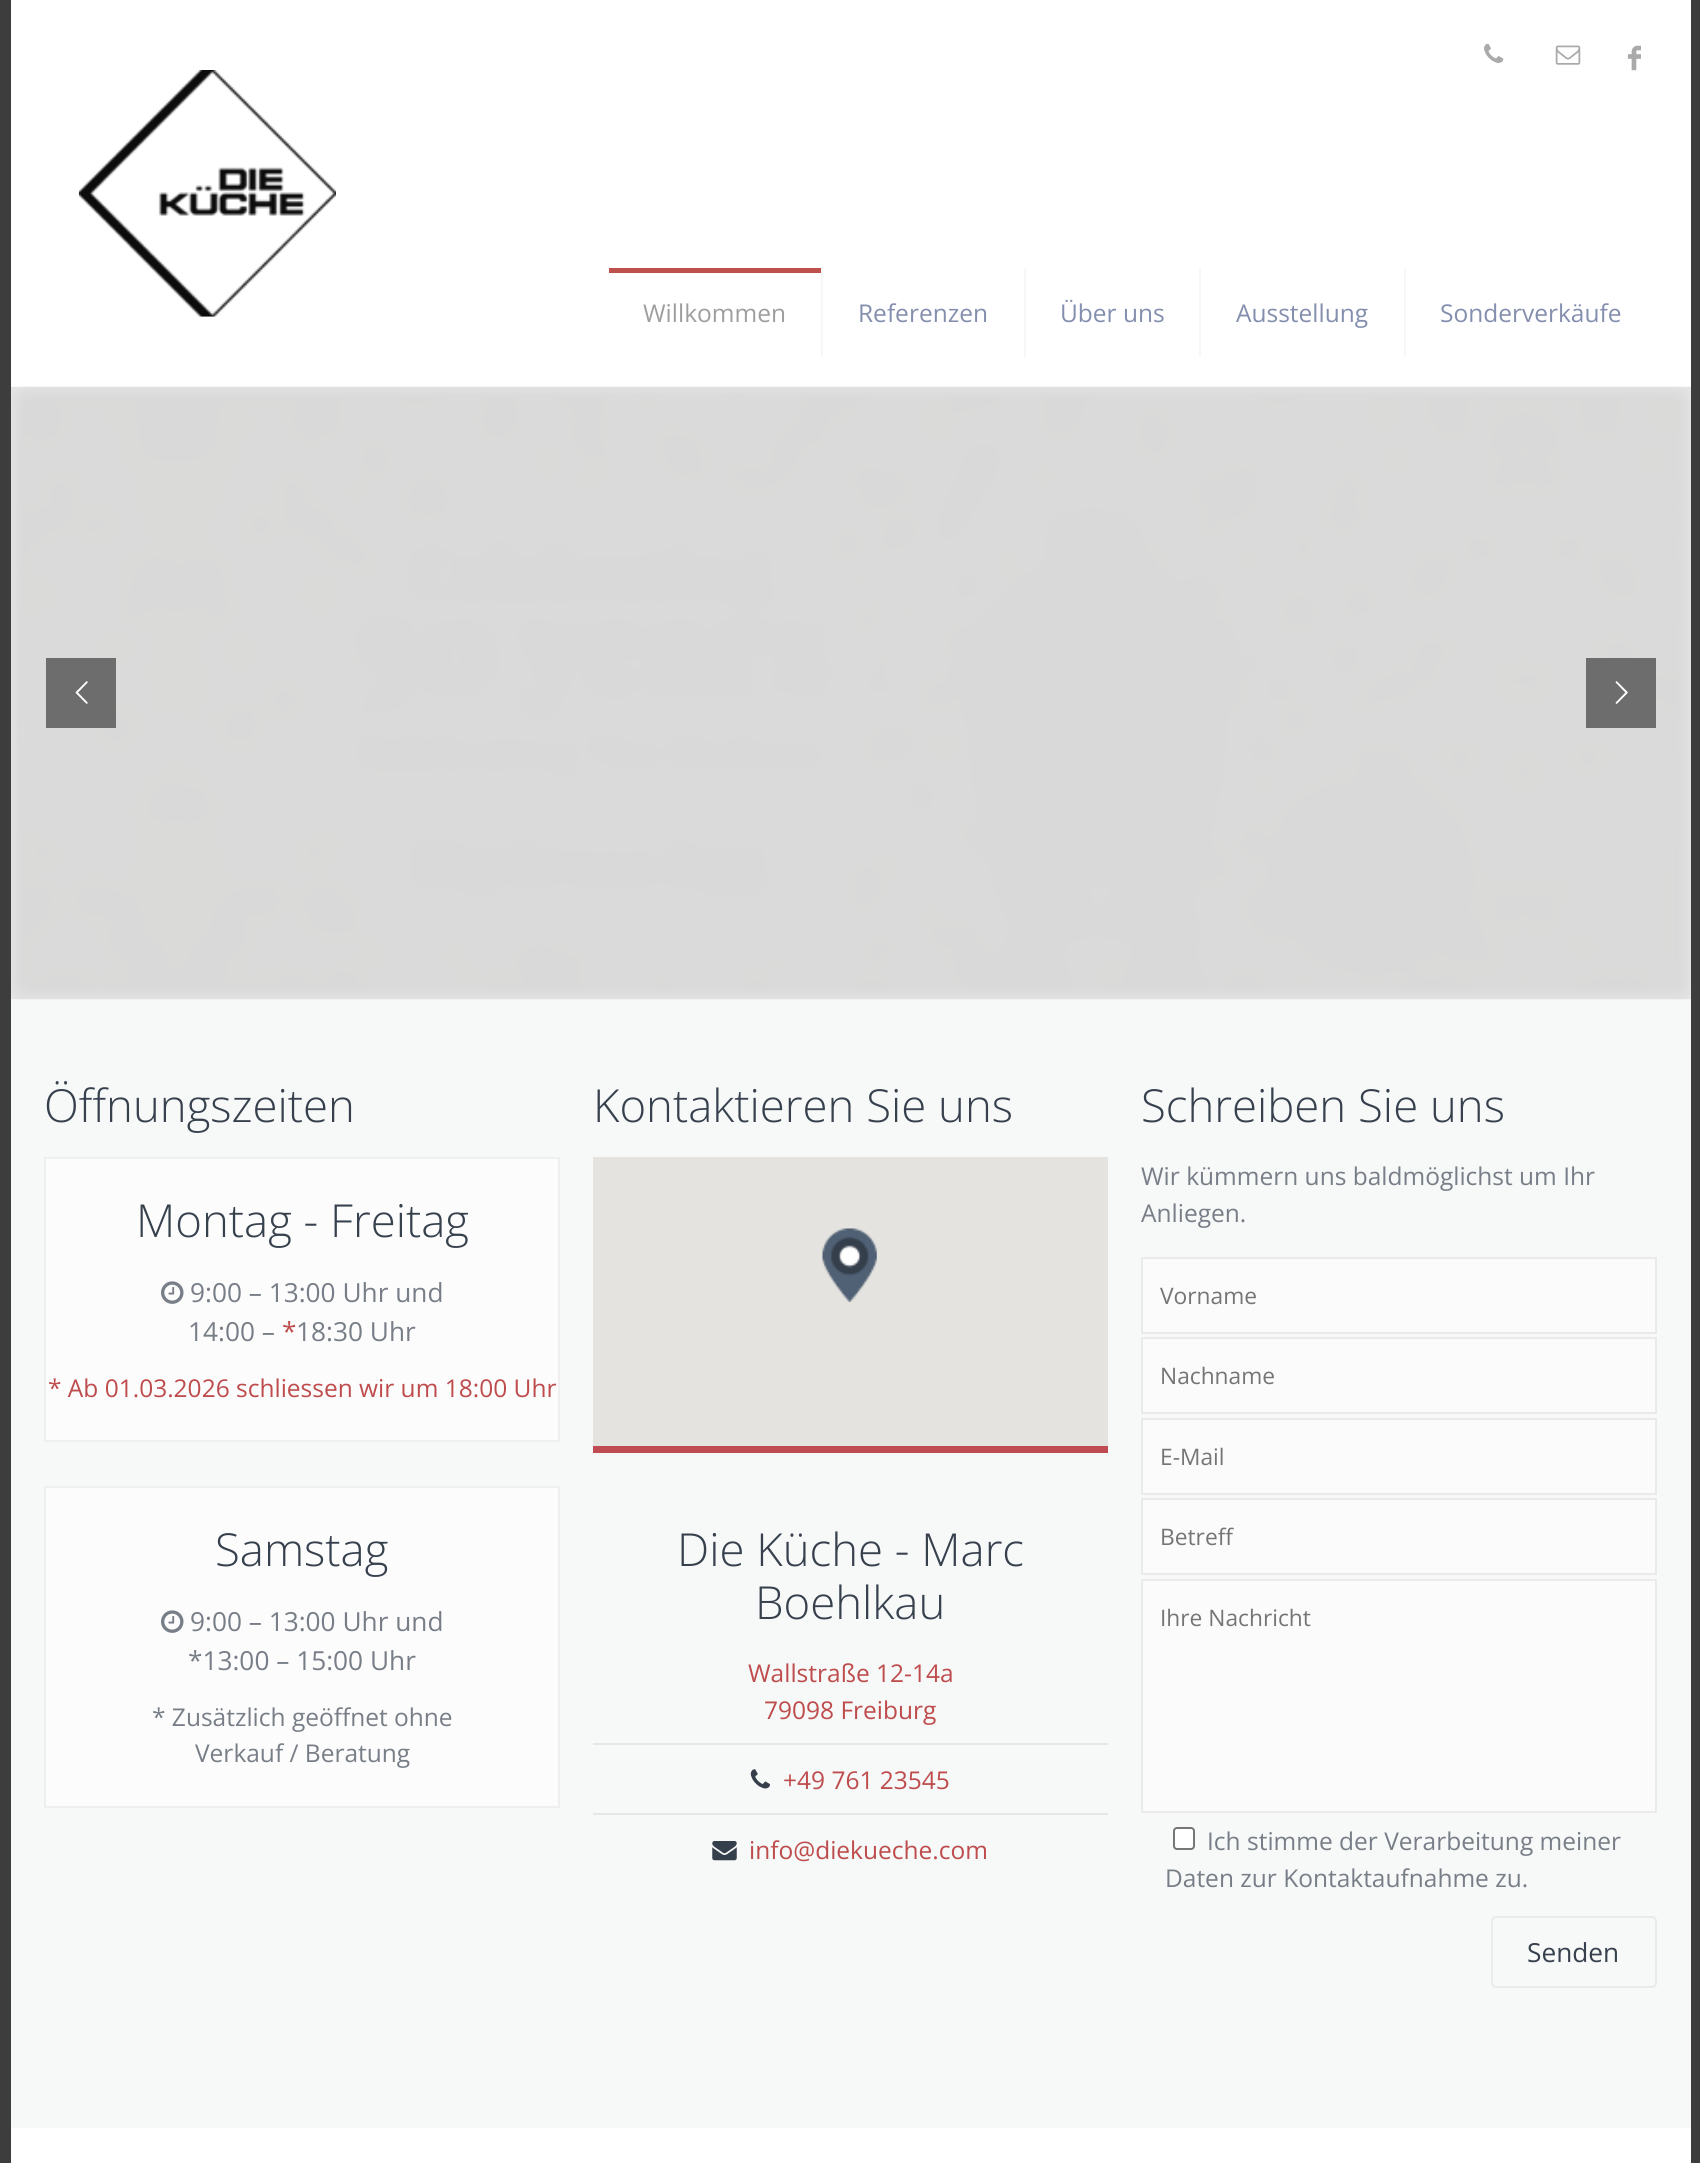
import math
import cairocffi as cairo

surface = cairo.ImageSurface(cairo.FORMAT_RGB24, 1700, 2163)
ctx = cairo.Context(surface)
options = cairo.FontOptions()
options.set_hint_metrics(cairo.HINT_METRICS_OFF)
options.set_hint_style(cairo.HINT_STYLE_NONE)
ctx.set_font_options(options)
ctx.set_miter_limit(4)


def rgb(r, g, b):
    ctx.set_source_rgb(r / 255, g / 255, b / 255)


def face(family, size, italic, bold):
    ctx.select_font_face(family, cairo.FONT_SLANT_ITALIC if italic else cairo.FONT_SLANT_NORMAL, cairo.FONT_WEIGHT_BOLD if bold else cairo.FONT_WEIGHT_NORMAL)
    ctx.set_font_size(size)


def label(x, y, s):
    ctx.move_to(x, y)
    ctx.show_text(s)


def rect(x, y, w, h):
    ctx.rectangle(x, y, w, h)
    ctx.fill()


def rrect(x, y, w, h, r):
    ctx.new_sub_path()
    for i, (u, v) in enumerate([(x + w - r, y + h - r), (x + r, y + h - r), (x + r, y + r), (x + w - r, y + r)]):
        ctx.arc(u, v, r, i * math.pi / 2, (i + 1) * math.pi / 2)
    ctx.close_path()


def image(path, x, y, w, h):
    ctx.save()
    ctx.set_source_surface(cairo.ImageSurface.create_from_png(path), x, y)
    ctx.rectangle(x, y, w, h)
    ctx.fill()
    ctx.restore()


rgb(61, 61, 61)
ctx.paint()
rgb(247, 248, 248)
rect(11, 999, 1680, 1129)
rgb(255, 255, 255)
rect(11, 0, 1680, 387)
image('image0.png', 1484, 43, 20, 20)
image('image1.png', 1555, 45, 26, 20)
face('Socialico', 40, 0, 0)
rgb(170, 170, 170)
label(1626, 72, 'F')
image('image2.png', 78, 70, 258, 247)
rgb(247, 247, 247)
rect(821, 268, 2, 89)
rgb(190, 81, 76)
rect(609, 268, 212, 5)
face('Open Sans', 24.5, 0, 0)
rgb(158, 158, 158)
label(643, 322, 'Willkommen')
rgb(247, 247, 247)
rect(1024, 268, 2, 89)
rgb(132, 142, 174)
label(858, 322, 'Referenzen')
rgb(247, 247, 247)
rect(1199, 268, 2, 89)
rgb(132, 142, 174)
label(1060, 322, 'Über uns')
rgb(247, 247, 247)
rect(1404, 268, 2, 89)
rgb(132, 142, 174)
label(1236, 322, 'Ausstellung')
label(1440, 322, 'Sonderverkäufe')
rgb(233, 233, 233)
rect(11, 387, 1680, 612)
image('image3.png', 11, 386, 1680, 614)
rgb(109, 109, 109)
rect(46, 658, 70, 70)
image('image4.png', 75, 681, 13, 23)
rect(1586, 658, 70, 70)
image('image5.png', 1615, 681, 13, 23)
face('Open Sans Light', 45.5, 0, 0)
rgb(55, 65, 78)
label(44, 1122, 'Öffnungszeiten')
rgb(252, 252, 252)
ctx.rectangle(45, 1158, 514, 283)
ctx.fill_preserve()
rgb(239, 239, 239)
ctx.stroke()
rgb(55, 65, 78)
label(136, 1237, 'Montag - Freitag')
image('image6.png', 161, 1281, 23, 23)
face('Open Sans', 26.25, 0, 0)
rgb(120, 126, 135)
label(190, 1302, '9:00 – 13:00 Uhr und')
label(188, 1341, '14:00 –')
rgb(190, 76, 77)
label(282, 1341, '*')
rgb(120, 126, 135)
label(296, 1341, '18:30 Uhr')
face('Open Sans', 24.5, 0, 0)
rgb(190, 76, 77)
label(48, 1397, '* Ab 01.03.2026 schliessen wir um 18:00 Uhr')
rgb(252, 252, 252)
ctx.rectangle(45, 1487, 514, 320)
ctx.fill_preserve()
rgb(239, 239, 239)
ctx.stroke()
face('Open Sans Light', 45.5, 0, 0)
rgb(55, 65, 78)
label(215, 1566, 'Samstag')
image('image6.png', 161, 1610, 23, 23)
face('Open Sans', 26.25, 0, 0)
rgb(120, 126, 135)
label(190, 1631, '9:00 – 13:00 Uhr und')
label(188, 1670, '*13:00 – 15:00 Uhr')
face('Open Sans', 24.5, 0, 0)
label(152, 1726, '* Zusätzlich geöffnet ohne')
label(195, 1762, 'Verkauf / Beratung')
face('Open Sans Light', 45.5, 0, 0)
rgb(55, 65, 78)
label(593, 1122, 'Kontaktieren Sie uns')
rgb(190, 76, 82)
rect(593, 1446, 515, 7)
rgb(229, 227, 223)
rect(593, 1157, 515, 289)
image('image7.png', 822, 1228, 55, 74)
rgb(230, 231, 231)
rect(593, 1743, 515, 2)
rgb(55, 65, 78)
label(677, 1566, 'Die Küche - Marc')
label(755, 1619, 'Boehlkau')
face('Open Sans', 24.5, 0, 0)
rgb(190, 76, 77)
label(748, 1682, 'Wallstraße 12-14a')
label(764, 1719, '79098 Freiburg')
rgb(230, 231, 231)
rect(593, 1813, 515, 2)
image('image8.png', 750, 1769, 20, 20)
rgb(190, 76, 77)
label(783, 1789, '+49 761 23545')
image('image9.png', 712, 1841, 25, 20)
label(749, 1859, 'info@diekueche.com')
face('Open Sans Light', 45.5, 0, 0)
rgb(55, 65, 78)
label(1141, 1122, 'Schreiben Sie uns')
face('Open Sans', 24.5, 0, 0)
rgb(120, 126, 135)
label(1141, 1185, 'Wir kümmern uns baldmöglichst um Ihr')
label(1141, 1222, 'Anliegen.')
rgb(251, 251, 251)
ctx.rectangle(1142, 1258, 514, 75)
ctx.fill_preserve()
rgb(234, 234, 234)
ctx.stroke()
face('Open Sans', 22.75, 0, 0)
rgb(117, 117, 117)
label(1160, 1304, 'Vorname')
rgb(251, 251, 251)
ctx.rectangle(1142, 1338, 514, 75)
ctx.fill_preserve()
rgb(234, 234, 234)
ctx.stroke()
rgb(117, 117, 117)
label(1160, 1384, 'Nachname')
rgb(251, 251, 251)
ctx.rectangle(1142, 1419, 514, 75)
ctx.fill_preserve()
rgb(234, 234, 234)
ctx.stroke()
rgb(117, 117, 117)
label(1160, 1465, 'E-Mail')
rgb(251, 251, 251)
ctx.rectangle(1142, 1499, 514, 75)
ctx.fill_preserve()
rgb(234, 234, 234)
ctx.stroke()
rgb(117, 117, 117)
label(1160, 1545, 'Betreff')
rgb(251, 251, 251)
ctx.rectangle(1142, 1580, 514, 232)
ctx.fill_preserve()
rgb(234, 234, 234)
ctx.stroke()
rgb(117, 117, 117)
label(1160, 1626, 'Ihre Nachricht')
rgb(255, 255, 255)
rrect(1174, 1828, 20, 21, 3)
ctx.fill_preserve()
rgb(118, 118, 118)
ctx.stroke()
face('Open Sans', 24.5, 0, 0)
rgb(120, 126, 135)
label(1207, 1850, 'Ich stimme der Verarbeitung meiner')
label(1165, 1887, 'Daten zur Kontaktaufnahme zu.')
rrect(1492, 1917, 164, 70, 4)
rgb(234, 234, 234)
ctx.stroke()
face('Open Sans', 26.25, 0, 0)
rgb(55, 65, 78)
label(1527, 1962, 'Senden')
rgb(255, 255, 255)
rect(11, 2128, 1680, 35)
surface.write_to_png('render.png')
